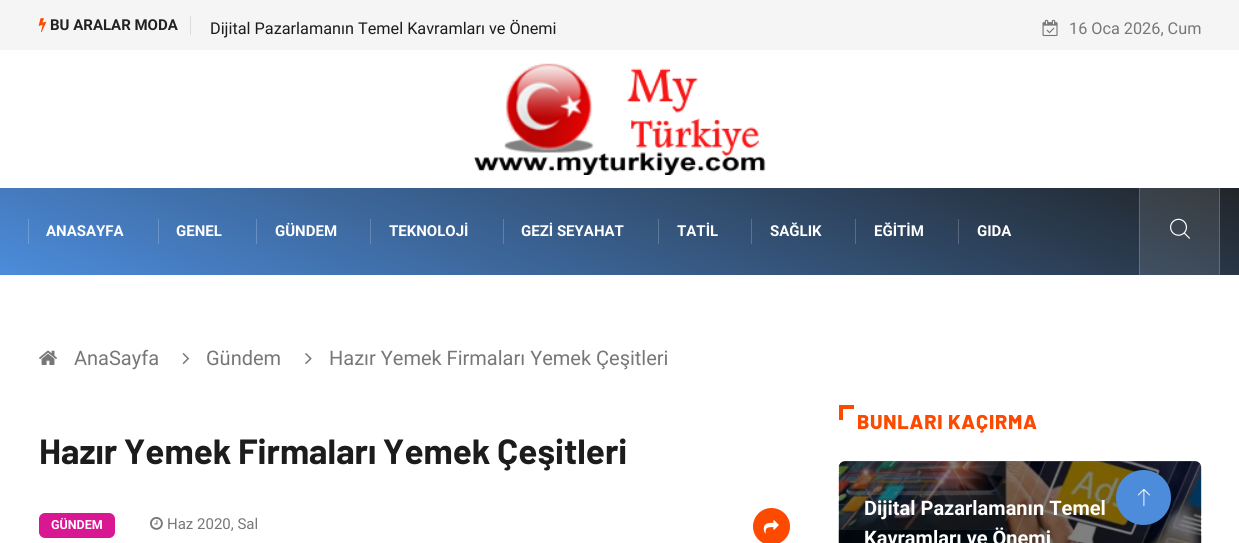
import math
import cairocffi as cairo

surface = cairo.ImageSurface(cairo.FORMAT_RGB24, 1239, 543)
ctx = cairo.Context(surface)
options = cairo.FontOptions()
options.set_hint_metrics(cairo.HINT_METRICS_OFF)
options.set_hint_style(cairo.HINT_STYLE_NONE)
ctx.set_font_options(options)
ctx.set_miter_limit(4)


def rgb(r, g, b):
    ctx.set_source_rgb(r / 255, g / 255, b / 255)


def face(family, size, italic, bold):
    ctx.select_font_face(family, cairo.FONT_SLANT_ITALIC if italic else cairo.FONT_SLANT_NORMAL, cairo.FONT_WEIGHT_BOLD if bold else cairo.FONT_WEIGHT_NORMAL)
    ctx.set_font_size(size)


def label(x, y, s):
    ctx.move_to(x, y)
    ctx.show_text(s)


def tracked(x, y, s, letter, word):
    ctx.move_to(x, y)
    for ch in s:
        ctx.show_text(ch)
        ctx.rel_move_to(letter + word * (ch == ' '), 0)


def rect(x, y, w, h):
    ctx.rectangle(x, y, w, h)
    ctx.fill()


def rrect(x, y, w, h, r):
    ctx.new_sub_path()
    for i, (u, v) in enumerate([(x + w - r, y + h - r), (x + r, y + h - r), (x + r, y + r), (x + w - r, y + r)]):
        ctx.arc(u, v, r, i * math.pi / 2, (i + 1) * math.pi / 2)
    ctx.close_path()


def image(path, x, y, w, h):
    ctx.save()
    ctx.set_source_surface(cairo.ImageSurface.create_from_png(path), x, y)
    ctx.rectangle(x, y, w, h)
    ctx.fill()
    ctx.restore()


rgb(255, 255, 255)
ctx.paint()
rgb(245, 245, 245)
rect(0, 0, 1239, 50)
rgb(222, 219, 219)
rect(190, 16, 1, 19)
image('image0.png', 38, 18, 9, 15)
face('Roboto', 15, 0, 1)
rgb(34, 34, 34)
label(50, 30, 'BU ARALAR MODA')
face('Roboto', 16.25, 0, 0)
rgb(28, 28, 28)
label(210, 34, 'Dijital Pazarlamanın Temel Kavramları ve Önemi')
image('image1.png', 1042, 19, 16, 18)
rgb(119, 119, 119)
label(1069, 34, '16 Oca 2026, Cum')
image('image2.png', 473, 63, 293, 112)
gradient = cairo.LinearGradient(533, 469, 707, -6.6)
gradient.add_color_stop_rgba(0, 0.298, 0.549, 0.859, 1)
gradient.add_color_stop_rgba(1, 0.129, 0.145, 0.161, 1)
ctx.set_source(gradient)
rect(0, 188, 1239, 87)
gradient = cairo.LinearGradient(533, 469, 707, -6.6)
gradient.add_color_stop_rgba(0, 0.439, 0.639, 0.886, 1)
gradient.add_color_stop_rgba(1, 0.302, 0.318, 0.329, 1)
ctx.set_source(gradient)
rect(958, 219, 1, 25)
rect(855, 219, 1, 25)
rect(751, 219, 1, 25)
rect(658, 219, 1, 25)
rect(503, 219, 1, 25)
rect(370, 219, 1, 25)
rect(256, 219, 1, 25)
rect(158, 219, 1, 25)
rect(28, 219, 1, 25)
gradient = cairo.LinearGradient(533, 469, 707, -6.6)
gradient.add_color_stop_rgba(0, 0.369, 0.596, 0.875, 1)
gradient.add_color_stop_rgba(1, 0.216, 0.231, 0.243, 1)
ctx.set_source(gradient)
rect(1140, 188, 79, 87)
gradient = cairo.LinearGradient(533, 469, 707, -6.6)
gradient.add_color_stop_rgba(0, 0.494, 0.678, 0.898, 1)
gradient.add_color_stop_rgba(1, 0.373, 0.384, 0.396, 1)
ctx.set_source(gradient)
rect(1139, 188, 1, 87)
rect(1219, 188, 1, 87)
face('Roboto', 15, 0, 1)
rgb(255, 255, 255)
label(46, 236, 'ANASAYFA')
label(176, 236, 'GENEL')
label(275, 236, 'GÜNDEM')
label(389, 236, 'TEKNOLOJİ')
label(521, 236, 'GEZİ SEYAHAT')
label(677, 236, 'TATİL')
label(770, 236, 'SAĞLIK')
label(874, 236, 'EĞİTİM')
label(977, 236, 'GIDA')
image('image3.png', 1170, 218, 20, 21)
image('image4.png', 39, 350, 18, 15)
face('Roboto', 20, 0, 0)
rgb(119, 119, 119)
label(74, 365, 'AnaSayfa')
image('image5.png', 182, 353, 8, 12)
label(206, 365, 'Gündem')
image('image6.png', 305, 353, 7, 12)
label(329, 365, 'Hazır Yemek Firmaları Yemek Çeşitleri')
face('Barlow', 35, 0, 1)
rgb(28, 28, 28)
tracked(39, 464, 'Hazır Yemek Firmaları Yemek Çeşitleri', 0, -0.5)
rgb(218, 23, 147)
rrect(39, 513, 76, 25, 6)
ctx.fill()
face('Roboto', 12.5, 0, 1)
rgb(255, 255, 255)
label(51, 529, 'GÜNDEM')
image('image7.png', 150, 517, 13, 13)
face('Roboto', 15, 0, 0)
rgb(119, 119, 119)
label(167, 529, 'Haz 2020, Sal')
rgb(252, 74, 0)
ctx.new_path()
ctx.arc(771.5, 526.5, 18.5, 0, 2 * math.pi)
ctx.fill()
image('image8.png', 763, 520, 16, 14)
rect(839, 405, 4, 15)
rect(839, 405, 15, 4)
face('Barlow ExtraBold', 20, 0, 0)
tracked(857, 429, 'BUNLARI KAÇIRMA', 0.75, 0)
image('image9.png', 838, 461, 364, 82)
ctx.set_source_rgba(0, 0, 0, 0.5)
rrect(839, 461, 362, 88, 6)
ctx.fill()
face('Roboto', 20, 0, 1)
rgb(255, 255, 255)
label(864, 515, 'Dijital Pazarlamanın Temel')
label(864, 545, 'Kavramları ve Önemi')
rgb(76, 140, 219)
ctx.new_path()
ctx.arc(1143.5, 497.5, 27.5, 0, 2 * math.pi)
ctx.fill()
image('image10.png', 1137, 489, 13, 18)
surface.write_to_png('render.png')
